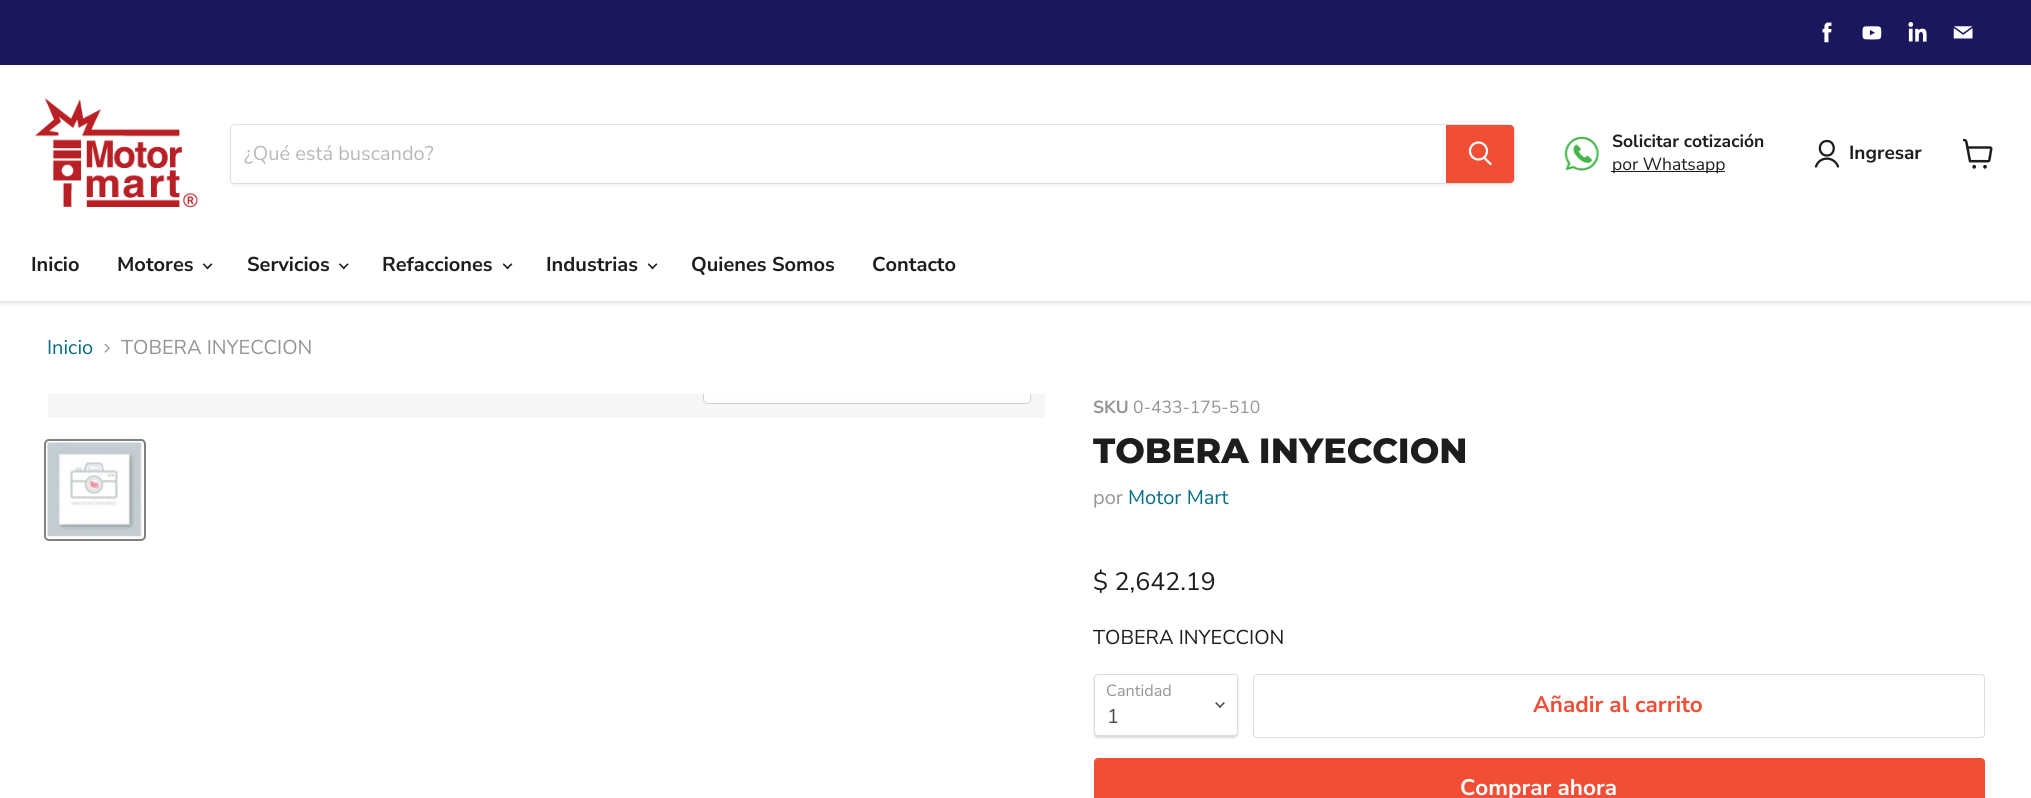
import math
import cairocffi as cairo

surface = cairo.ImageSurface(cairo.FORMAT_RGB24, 2031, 798)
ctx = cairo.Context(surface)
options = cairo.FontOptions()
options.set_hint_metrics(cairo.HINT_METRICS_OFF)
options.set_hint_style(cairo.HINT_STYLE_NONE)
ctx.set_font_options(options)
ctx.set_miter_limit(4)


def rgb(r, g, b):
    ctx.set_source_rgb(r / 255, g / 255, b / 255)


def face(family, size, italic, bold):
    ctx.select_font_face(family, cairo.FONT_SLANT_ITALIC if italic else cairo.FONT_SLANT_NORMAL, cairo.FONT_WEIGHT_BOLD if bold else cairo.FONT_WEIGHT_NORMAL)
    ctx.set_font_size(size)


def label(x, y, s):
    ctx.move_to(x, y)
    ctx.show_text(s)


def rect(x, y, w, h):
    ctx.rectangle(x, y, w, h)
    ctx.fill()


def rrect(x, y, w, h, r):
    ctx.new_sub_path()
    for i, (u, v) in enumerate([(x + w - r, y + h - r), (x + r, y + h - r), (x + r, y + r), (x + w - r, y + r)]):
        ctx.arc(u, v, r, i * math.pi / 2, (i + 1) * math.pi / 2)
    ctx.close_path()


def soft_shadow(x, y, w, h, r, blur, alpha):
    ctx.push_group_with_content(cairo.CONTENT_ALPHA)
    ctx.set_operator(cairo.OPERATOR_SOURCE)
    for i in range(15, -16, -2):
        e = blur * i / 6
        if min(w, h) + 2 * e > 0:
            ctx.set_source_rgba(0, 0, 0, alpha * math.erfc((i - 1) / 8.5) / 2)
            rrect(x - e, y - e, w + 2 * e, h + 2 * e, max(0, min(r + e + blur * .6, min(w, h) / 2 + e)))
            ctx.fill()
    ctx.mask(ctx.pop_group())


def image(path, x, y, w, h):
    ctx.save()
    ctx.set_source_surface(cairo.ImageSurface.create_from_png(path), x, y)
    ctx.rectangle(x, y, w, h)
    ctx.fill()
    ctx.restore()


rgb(255, 255, 255)
ctx.paint()
rgb(128, 128, 128)
soft_shadow(0, 68, 2031, 235, 0, 2.5, 0.25)
rgb(27, 23, 93)
rect(0, 0, 2031, 65)
image('image0.png', 1822, 22, 10, 21)
image('image1.png', 1862, 26, 20, 14)
image('image2.png', 1908, 22, 19, 20)
image('image3.png', 1953, 26, 20, 13)
rgb(255, 255, 255)
rect(0, 65, 2031, 236)
image('image4.png', 35, 98, 163, 110)
rgb(128, 128, 128)
soft_shadow(230, 126, 1285, 60, 5, 2, 0.11)
rrect(230.5, 124.5, 1284, 59, 4.5)
ctx.set_source_rgba(0.502, 0.502, 0.502, 0.2)
ctx.set_line_width(1)
ctx.stroke()
rgb(255, 255, 255)
ctx.new_path()
ctx.move_to(235, 125)
ctx.line_to(1446, 125)
ctx.line_to(1446, 183)
ctx.line_to(235, 183)
ctx.curve_to(233, 183, 231, 181, 231, 179)
ctx.line_to(231, 129)
ctx.curve_to(231, 127, 233, 125, 235, 125)
ctx.close_path()
ctx.fill()
face('Nunito Sans', 20, 0, 0)
rgb(184, 184, 184)
label(244, 160, '¿Qué está buscando?')
rgb(240, 79, 54)
ctx.new_path()
ctx.move_to(1446.5, 125.5)
ctx.line_to(1510, 125.5)
ctx.curve_to(1512, 125.5, 1513.5, 127, 1513.5, 129)
ctx.line_to(1513.5, 179)
ctx.curve_to(1513.5, 181, 1512, 182.5, 1510, 182.5)
ctx.line_to(1446.5, 182.5)
ctx.close_path()
ctx.fill_preserve()
ctx.stroke()
ctx.new_path()
ctx.move_to(1490.5, 164)
ctx.line_to(1484.5, 158)
rgb(255, 255, 255)
ctx.set_line_width(2.2)
ctx.set_line_cap(cairo.LINE_CAP_ROUND)
ctx.stroke()
ctx.arc(1478.5, 151, 8.5, 0, 2 * math.pi)
ctx.set_line_cap(cairo.LINE_CAP_BUTT)
ctx.stroke()
image('image5.png', 1564, 136, 35, 35)
face('Nunito Sans', 17.5, 0, 1)
rgb(29, 29, 29)
label(1612, 147, 'Solicitar cotización')
rect(1611, 171, 114, 1)
face('Nunito Sans', 17.5, 0, 0)
label(1612, 170, 'por Whatsapp')
ctx.new_path()
ctx.move_to(1827, 155.5)
ctx.curve_to(1836, 155.5, 1836, 141, 1827, 141)
ctx.curve_to(1817.5, 141, 1817.5, 155.5, 1827, 155.5)
ctx.close_path()
ctx.move_to(1838, 166.5)
ctx.curve_to(1834, 156, 1819.5, 156, 1816, 166.5)
ctx.set_line_width(2.3)
ctx.set_line_cap(cairo.LINE_CAP_ROUND)
ctx.set_line_join(cairo.LINE_JOIN_ROUND)
ctx.stroke()
face('Nunito Sans', 19, 0, 1)
label(1849, 159, 'Ingresar')
image('image6.png', 1963, 139, 30, 30)
face('Nunito Sans', 20, 0, 1)
label(31, 271, 'Inicio')
label(117, 271, 'Motores')
image('image7.png', 203, 263, 10, 7)
label(247, 271, 'Servicios')
image('image8.png', 339, 263, 10, 7)
label(382, 271, 'Refacciones')
image('image7.png', 503, 263, 10, 7)
label(546, 271, 'Industrias')
image('image7.png', 648, 263, 10, 7)
label(691, 271, 'Quienes Somos')
label(872, 271, 'Contacto')
face('Nunito Sans', 20, 0, 0)
rgb(4, 110, 130)
label(47, 354, 'Inicio')
image('image9.png', 104, 343, 6, 10)
rgb(148, 148, 148)
label(121, 354, 'TOBERA INYECCION')
rgb(246, 246, 246)
rect(48, 394, 997, 24)
ctx.save()
ctx.rectangle(48, 394, 997, 24)
ctx.clip()
rrect(703.5, 366.5, 327, 37, 4.5)
rgb(209, 209, 209)
ctx.set_line_width(1)
ctx.set_line_cap(cairo.LINE_CAP_BUTT)
ctx.set_line_join(cairo.LINE_JOIN_MITER)
ctx.stroke()
ctx.restore()
ctx.set_source_rgba(1, 1, 1, 0.9)
ctx.new_path()
ctx.move_to(704, 394)
ctx.line_to(1030, 394)
ctx.line_to(1030, 399)
ctx.curve_to(1030, 401, 1028, 403, 1026, 403)
ctx.line_to(708, 403)
ctx.curve_to(706, 403, 704, 401, 704, 399)
ctx.close_path()
ctx.fill()
rrect(45, 440, 100, 100, 4)
rgb(129, 129, 129)
ctx.set_line_width(2)
ctx.set_line_cap(cairo.LINE_CAP_BUTT)
ctx.set_line_join(cairo.LINE_JOIN_MITER)
ctx.stroke()
image('image10.png', 47, 442, 95, 95)
face('Nunito Sans', 17.5, 0, 1)
rgb(148, 148, 148)
label(1093, 413, 'SKU')
face('Nunito Sans', 17.5, 0, 0)
label(1133, 413, '0-433-175-510')
face('Montserrat ExtraBold', 35, 0, 0)
rgb(29, 29, 29)
label(1093, 463, 'TOBERA INYECCION')
face('Nunito Sans', 20, 0, 0)
rgb(148, 148, 148)
label(1093, 504, 'por')
rgb(4, 110, 130)
label(1128, 504, 'Motor Mart')
face('Nunito Sans', 25, 0, 0)
rgb(29, 29, 29)
label(1093, 590, '$ 2,642.19')
face('Nunito Sans', 20, 0, 0)
label(1093, 644, 'TOBERA INYECCION')
rgb(0, 0, 0)
soft_shadow(1094, 675, 144, 63, 4, 1, 0.15)
rgb(255, 255, 255)
rrect(1094.5, 674.5, 143, 61, 3.5)
ctx.fill_preserve()
rgb(221, 221, 221)
ctx.set_line_width(1)
ctx.stroke()
face('Nunito Sans', 16.25, 0, 0)
rgb(148, 148, 148)
label(1106, 696, 'Cantidad')
image('image11.png', 1215, 702, 10, 6)
face('Nunito Sans', 20, 0, 0)
rgb(77, 77, 77)
label(1107, 723, '1')
rrect(1253.5, 674.5, 731, 63, 3.5)
rgb(221, 221, 221)
ctx.stroke()
face('Nunito Sans', 22.5, 0, 1)
rgb(240, 79, 54)
label(1533, 712, 'Añadir al carrito')
rrect(1094.5, 758.5, 890, 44, 3.5)
ctx.fill_preserve()
ctx.stroke()
rgb(255, 255, 255)
label(1460, 795, 'Comprar ahora')
surface.write_to_png('render.png')
